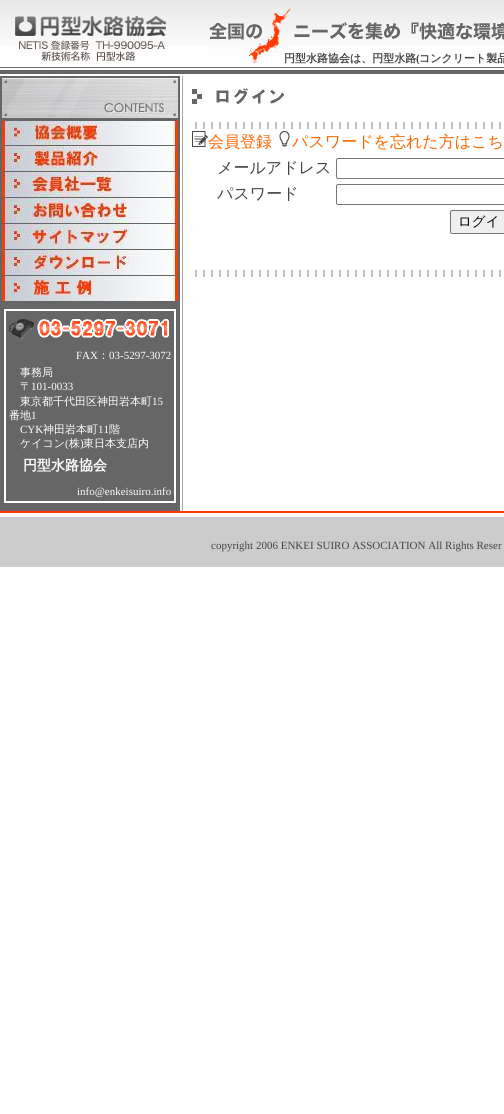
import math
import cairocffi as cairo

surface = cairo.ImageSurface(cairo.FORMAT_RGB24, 504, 1114)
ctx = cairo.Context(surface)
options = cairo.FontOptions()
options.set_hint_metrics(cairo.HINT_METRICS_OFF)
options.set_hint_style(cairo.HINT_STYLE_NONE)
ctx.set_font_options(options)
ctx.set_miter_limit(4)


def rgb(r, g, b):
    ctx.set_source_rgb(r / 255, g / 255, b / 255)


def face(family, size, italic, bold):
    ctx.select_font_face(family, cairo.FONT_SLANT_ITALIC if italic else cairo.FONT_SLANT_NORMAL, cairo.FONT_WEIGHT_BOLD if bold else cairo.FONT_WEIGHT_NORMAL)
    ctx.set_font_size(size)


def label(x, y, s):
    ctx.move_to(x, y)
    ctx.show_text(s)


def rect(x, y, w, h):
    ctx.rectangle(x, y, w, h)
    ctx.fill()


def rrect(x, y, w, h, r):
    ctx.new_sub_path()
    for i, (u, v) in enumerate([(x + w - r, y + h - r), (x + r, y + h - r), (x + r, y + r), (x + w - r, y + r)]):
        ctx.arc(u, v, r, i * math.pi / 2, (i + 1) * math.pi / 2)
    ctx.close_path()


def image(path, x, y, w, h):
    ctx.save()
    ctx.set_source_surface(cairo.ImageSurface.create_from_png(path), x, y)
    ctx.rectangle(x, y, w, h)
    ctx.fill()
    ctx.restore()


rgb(255, 255, 255)
ctx.paint()
image('image0.png', 0, 0, 180, 46)
image('image1.png', 15, 16, 151, 45)
image('image2.png', 180, 0, 324, 46)
image('image3.png', 209, 13, 75, 51)
image('image4.png', 284, 8, 220, 32)
face('WenQuanYi Zen Hei', 11, 0, 1)
rgb(68, 68, 68)
label(284, 62, '円型水路協会は、円型水路')
face('Liberation Serif', 11, 0, 1)
label(416, 62, '(')
face('WenQuanYi Zen Hei', 11, 0, 1)
label(419, 62, 'コンクリート製品')
rgb(102, 102, 102)
rect(0, 67, 504, 1)
rect(0, 70, 504, 4)
rgb(160, 168, 171)
rect(182, 76, 1, 435)
image('image5.png', 192, 88, 92, 16)
image('image6.png', 195, 122, 306, 7)
image('image7.png', 192, 131, 16, 16)
face('WenQuanYi Zen Hei Medium', 16, 0, 0)
rgb(255, 102, 0)
label(208, 147, '会員登録')
image('image8.png', 279, 131, 11, 16)
label(292, 147, 'パスワードを忘れた方はこち')
rgb(68, 68, 68)
label(217, 173, 'メールアドレス')
rrect(336.5, 158.5, 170, 20, 1.5)
rgb(118, 118, 118)
ctx.set_line_width(1)
ctx.stroke()
rgb(68, 68, 68)
label(217, 199, 'パスワード')
rrect(336.5, 184.5, 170, 20, 1.5)
rgb(118, 118, 118)
ctx.stroke()
rgb(239, 239, 239)
rrect(450.5, 210.5, 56, 23, 1.5)
ctx.fill_preserve()
rgb(118, 118, 118)
ctx.stroke()
face('WenQuanYi Zen Hei Medium', 13.5, 0, 0)
rgb(0, 0, 0)
label(458, 226, 'ログイ')
image('image6.png', 195, 270, 306, 7)
rgb(102, 102, 102)
rect(0, 76, 180, 435)
image('image9.png', 2, 76, 176, 42)
image('image10.png', 2, 120, 176, 25)
image('image11.png', 2, 145, 176, 26)
image('image12.png', 2, 171, 176, 26)
image('image13.png', 2, 197, 176, 26)
image('image14.png', 2, 223, 176, 26)
image('image15.png', 2, 249, 176, 26)
image('image16.png', 2, 275, 176, 26)
ctx.rectangle(4.5, 309.5, 171, 193)
rgb(255, 255, 255)
ctx.stroke()
ctx.rectangle(5.5, 310.5, 169, 191)
ctx.stroke()
image('image17.png', 9, 319, 160, 20)
face('Liberation Serif', 11, 0, 0)
label(76, 359, 'FAX')
face('WenQuanYi Zen Hei Medium', 11, 0, 0)
label(98, 359, '：')
face('Liberation Serif', 11, 0, 0)
label(109, 359, '03-5297-3072')
face('WenQuanYi Zen Hei Medium', 11, 0, 0)
label(20, 376, '事務局')
label(20, 390, '〒')
face('Liberation Serif', 11, 0, 0)
label(31, 390, '101-0033')
face('WenQuanYi Zen Hei Medium', 11, 0, 0)
label(20, 405, '東京都千代田区神田岩本町')
face('Liberation Serif', 11, 0, 0)
label(152, 405, '15')
face('WenQuanYi Zen Hei Medium', 11, 0, 0)
label(9, 419, '番地')
face('Liberation Serif', 11, 0, 0)
label(31, 419, '1')
label(20, 433, 'CYK')
face('WenQuanYi Zen Hei Medium', 11, 0, 0)
label(43, 433, '神田岩本町')
face('Liberation Serif', 11, 0, 0)
label(98, 433, '11')
face('WenQuanYi Zen Hei Medium', 11, 0, 0)
label(109, 433, '階')
label(20, 447, 'ケイコン')
face('Liberation Serif', 11, 0, 0)
label(65, 447, '(')
face('WenQuanYi Zen Hei Medium', 11, 0, 0)
label(69, 447, '株')
face('Liberation Serif', 11, 0, 0)
label(80, 447, ')')
face('WenQuanYi Zen Hei Medium', 11, 0, 0)
label(83, 447, '東日本支店内')
face('WenQuanYi Zen Hei', 14, 0, 1)
label(23, 470, '円型水路協会')
face('Liberation Serif', 11, 0, 0)
label(77, 495, 'info@enkeisuiro.info')
rgb(255, 54, 0)
rect(0, 511, 504, 2)
rgb(204, 204, 204)
rect(0, 517, 504, 50)
rgb(68, 68, 68)
label(211, 549, 'copyright 2006 ENKEI SUIRO ASSOCIATION All Rights Reser')
surface.write_to_png('render.png')
